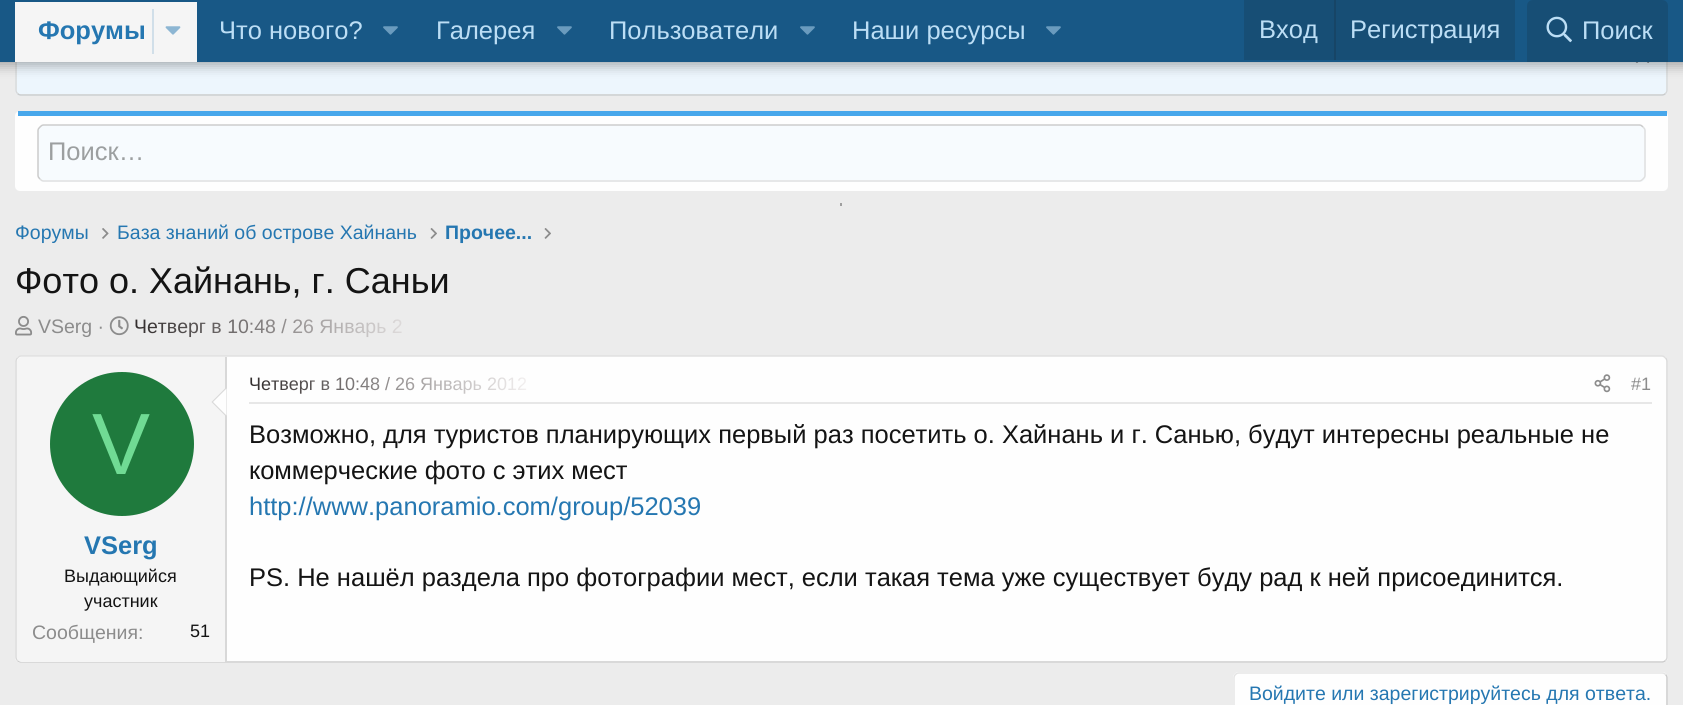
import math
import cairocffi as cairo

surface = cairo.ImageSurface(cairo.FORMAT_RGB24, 1683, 705)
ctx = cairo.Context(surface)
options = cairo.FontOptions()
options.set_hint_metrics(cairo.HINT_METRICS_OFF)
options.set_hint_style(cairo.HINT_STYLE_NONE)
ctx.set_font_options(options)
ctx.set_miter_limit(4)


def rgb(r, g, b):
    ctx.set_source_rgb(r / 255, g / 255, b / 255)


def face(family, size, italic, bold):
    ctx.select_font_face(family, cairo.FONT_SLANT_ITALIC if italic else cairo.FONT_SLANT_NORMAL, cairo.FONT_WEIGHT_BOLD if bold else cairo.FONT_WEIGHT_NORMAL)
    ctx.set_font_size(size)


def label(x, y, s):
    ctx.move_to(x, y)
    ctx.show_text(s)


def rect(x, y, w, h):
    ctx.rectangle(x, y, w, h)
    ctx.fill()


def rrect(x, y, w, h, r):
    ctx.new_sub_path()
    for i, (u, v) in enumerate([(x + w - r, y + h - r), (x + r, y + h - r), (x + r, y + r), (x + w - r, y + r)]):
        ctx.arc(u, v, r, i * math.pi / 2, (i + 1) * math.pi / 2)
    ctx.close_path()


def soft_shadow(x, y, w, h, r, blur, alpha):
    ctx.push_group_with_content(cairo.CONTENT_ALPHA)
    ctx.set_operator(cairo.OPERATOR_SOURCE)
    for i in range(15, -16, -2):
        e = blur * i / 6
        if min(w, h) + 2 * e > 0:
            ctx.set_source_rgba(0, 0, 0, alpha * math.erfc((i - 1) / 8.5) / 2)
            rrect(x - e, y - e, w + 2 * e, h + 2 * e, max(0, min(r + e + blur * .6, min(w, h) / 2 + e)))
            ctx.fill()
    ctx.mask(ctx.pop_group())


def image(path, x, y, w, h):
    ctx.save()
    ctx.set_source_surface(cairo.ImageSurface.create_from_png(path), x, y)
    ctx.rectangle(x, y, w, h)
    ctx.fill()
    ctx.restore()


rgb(236, 236, 236)
ctx.paint()
rgb(237, 246, 253)
rrect(15, 27, 1653, 69, 6)
ctx.fill()
ctx.new_path()
ctx.move_to(1665.5, 29.5)
ctx.curve_to(1666.5, 30.5, 1667, 31.5, 1667, 33)
ctx.line_to(1667, 90)
ctx.curve_to(1667, 91.5, 1666.5, 92.5, 1665.5, 93.5)
rgb(216, 216, 216)
ctx.set_line_width(1.5)
ctx.stroke()
ctx.new_path()
ctx.move_to(1665.5, 93.5)
ctx.curve_to(1664.5, 94.5, 1663.5, 95, 1662, 95)
ctx.line_to(21, 95)
ctx.curve_to(19.5, 95, 18.5, 94.5, 17.5, 93.5)
rgb(203, 203, 203)
ctx.stroke()
ctx.new_path()
ctx.move_to(17.5, 93.5)
ctx.curve_to(16.5, 92.5, 16, 91.5, 16, 90)
ctx.line_to(16, 33)
ctx.curve_to(16, 31.5, 16.5, 30.5, 17.5, 29.5)
rgb(216, 216, 216)
ctx.stroke()
image('image3.png', 1635, 62, 15, 1)
rgb(0, 0, 0)
soft_shadow(-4, -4, 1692, 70, 0, 6, 0.3)
rgb(24, 88, 134)
rect(0, 0, 1683, 62)
rgb(245, 245, 245)
rect(15, 2, 182, 60)
face('Liberation Sans', 25.5, 0, 1)
rgb(37, 119, 177)
label(38, 39, 'Форумы')
rgb(209, 223, 233)
rect(152, 9, 2, 45)
image('image0.png', 165, 26, 16, 9)
face('Liberation Sans', 25.5, 0, 0)
rgb(188, 222, 245)
label(219, 39, 'Что нового?')
image('image1.png', 383, 26, 15, 9)
label(436, 39, 'Галерея')
image('image1.png', 557, 26, 15, 9)
label(609, 39, 'Пользователи')
image('image1.png', 800, 26, 15, 9)
label(852, 39, 'Наши ресурсы')
image('image1.png', 1046, 26, 15, 9)
rgb(23, 78, 117)
rect(1244, 0, 271, 60)
rgb(188, 222, 245)
label(1259, 38, 'Вход')
rgb(23, 69, 102)
rect(1334, 0, 2, 60)
rgb(188, 222, 245)
label(1350, 38, 'Регистрация')
rgb(23, 78, 117)
ctx.new_path()
ctx.move_to(1533, 0)
ctx.line_to(1662, 0)
ctx.curve_to(1665.5, 0, 1668, 2.5, 1668, 6)
ctx.line_to(1668, 62)
ctx.line_to(1527, 62)
ctx.line_to(1527, 6)
ctx.curve_to(1527, 2.5, 1529.5, 0, 1533, 0)
ctx.close_path()
ctx.fill()
image('image2.png', 1546, 16, 26, 27)
rgb(188, 222, 245)
label(1582, 39, 'Поиск')
rgb(254, 254, 254)
rrect(15, 111, 1653, 80, 5)
ctx.fill()
rgb(71, 167, 235)
rect(18, 111, 1649, 5)
rgb(247, 251, 254)
rrect(38, 125, 1608, 57, 6)
ctx.fill()
ctx.new_path()
ctx.move_to(1643, 127)
ctx.curve_to(1644, 128, 1645, 129, 1645, 130.5)
ctx.line_to(1645, 175.5)
ctx.curve_to(1645, 177, 1644, 178, 1643, 179)
ctx.curve_to(1642, 180, 1641, 181, 1639.5, 181)
ctx.line_to(43.5, 181)
ctx.curve_to(42, 181, 41, 180, 40, 179)
rgb(223, 223, 223)
ctx.stroke()
ctx.new_path()
ctx.move_to(40, 179)
ctx.curve_to(39, 178, 38, 177, 38, 175.5)
ctx.line_to(38, 130.5)
ctx.curve_to(38, 129, 39, 128, 40, 127)
ctx.curve_to(41, 126, 42, 125, 43.5, 125)
ctx.line_to(1639.5, 125)
ctx.curve_to(1641, 125, 1642, 126, 1643, 127)
rgb(203, 203, 203)
ctx.stroke()
rgb(156, 159, 160)
label(48, 160, 'Поиск…')
rgb(159, 159, 159)
rect(840, 203, 2, 3)
face('Liberation Sans', 19.5, 0, 0)
rgb(37, 119, 177)
label(15, 239, 'Форумы')
image('image4.png', 102, 228, 7, 11)
label(117, 239, 'База знаний об острове Хайнань')
image('image5.png', 430, 228, 7, 11)
face('Liberation Sans', 19.5, 0, 1)
label(445, 239, 'Прочее...')
image('image5.png', 544, 228, 7, 11)
face('Liberation Sans', 36, 0, 0)
rgb(20, 20, 20)
label(15, 293, 'Фото о. Хайнань, г. Саньи')
image('image6.png', 15, 315, 18, 21)
face('Liberation Sans', 19.5, 0, 0)
rgb(140, 140, 140)
label(38, 333, 'VSerg ·')
image('image7.png', 109, 316, 20, 20)
gradient = cairo.LinearGradient(134, 326, 448, 326)
gradient.add_color_stop_rgba(0, 0.192, 0.173, 0.173, 1)
gradient.add_color_stop_rgba(1, 0.984, 0.973, 0.973, 1)
ctx.set_source(gradient)
label(134, 333, 'Четверг в 10:48 / 26 Январь 2')
rgb(254, 254, 254)
rrect(15, 356, 1653, 307, 6)
ctx.fill()
ctx.new_path()
ctx.move_to(17.5, 358)
ctx.curve_to(18.5, 357, 19.5, 356, 21, 356)
ctx.line_to(1662, 356)
ctx.curve_to(1663.5, 356, 1664.5, 357, 1665.5, 358)
rgb(223, 223, 223)
ctx.stroke()
ctx.new_path()
ctx.move_to(1665.5, 358)
ctx.curve_to(1666.5, 359, 1667, 360, 1667, 361.5)
ctx.line_to(1667, 657)
ctx.curve_to(1667, 658.5, 1666.5, 659.5, 1665.5, 660.5)
rgb(216, 216, 216)
ctx.stroke()
ctx.new_path()
ctx.move_to(1665.5, 660.5)
ctx.curve_to(1664.5, 661.5, 1663.5, 662, 1662, 662)
ctx.line_to(21, 662)
ctx.curve_to(19.5, 662, 18.5, 661.5, 17.5, 660.5)
rgb(203, 203, 203)
ctx.stroke()
ctx.new_path()
ctx.move_to(17.5, 660.5)
ctx.curve_to(16.5, 659.5, 16, 658.5, 16, 657)
ctx.line_to(16, 361.5)
ctx.curve_to(16, 360, 16.5, 359, 17.5, 358)
rgb(216, 216, 216)
ctx.stroke()
rgb(245, 245, 245)
ctx.new_path()
ctx.move_to(22, 357)
ctx.line_to(227, 357)
ctx.line_to(227, 662)
ctx.line_to(22, 662)
ctx.curve_to(19, 662, 17, 660, 17, 657)
ctx.line_to(17, 362)
ctx.curve_to(17, 359, 19, 357, 22, 357)
ctx.close_path()
ctx.fill()
rgb(216, 216, 216)
rect(225, 357, 2, 305)
ctx.new_path()
ctx.move_to(226.5, 387)
ctx.line_to(226.5, 417)
ctx.line_to(211.5, 402)
ctx.close_path()
ctx.fill()
rgb(254, 254, 254)
ctx.new_path()
ctx.move_to(226.5, 388.5)
ctx.line_to(226.5, 415.5)
ctx.line_to(213, 402)
ctx.close_path()
ctx.fill()
rgb(31, 122, 61)
ctx.arc(122, 444, 72, 0, 2 * math.pi)
ctx.fill()
face('Liberation Sans', 87, 0, 0)
rgb(112, 219, 148)
label(92, 474, 'V')
face('Liberation Sans', 25.5, 0, 1)
rgb(37, 119, 177)
label(84, 554, 'VSerg')
face('Liberation Sans', 18, 0, 0)
rgb(20, 20, 20)
label(64, 582, 'Выдающийся')
label(84, 607, 'участник')
face('Liberation Sans', 19.5, 0, 0)
rgb(140, 140, 140)
label(32, 639, 'Сообщения:')
face('Liberation Sans', 18, 0, 0)
rgb(20, 20, 20)
label(190, 637, '51')
rgb(231, 231, 231)
rect(249, 402, 1403, 2)
gradient = cairo.LinearGradient(249, 384, 539, 384)
gradient.add_color_stop_rgba(0, 0.192, 0.173, 0.173, 1)
gradient.add_color_stop_rgba(1, 0.984, 0.973, 0.973, 1)
ctx.set_source(gradient)
label(249, 390, 'Четверг в 10:48 / 26 Январь 2012')
image('image8.png', 1594, 374, 17, 19)
rgb(140, 140, 140)
label(1631, 390, '#1')
face('Liberation Sans', 25.5, 0, 0)
rgb(20, 20, 20)
label(249, 443, 'Возможно, для туристов планирующих первый раз посетить о. Хайнань и г. Санью, будут интересны реальные не')
label(249, 479, 'коммерческие фото с этих мест')
rgb(37, 119, 177)
label(249, 515, 'http://www.panoramio.com/group/52039')
rgb(20, 20, 20)
label(249, 586, 'PS. Не нашёл раздела про фотографии мест, если такая тема уже существует буду рад к ней присоединится.')
rgb(254, 254, 254)
rrect(1233, 672, 435, 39, 6)
ctx.fill()
ctx.new_path()
ctx.move_to(1665.5, 674.5)
ctx.curve_to(1666.5, 675.5, 1667, 676.5, 1667, 678)
ctx.line_to(1667, 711)
ctx.curve_to(1667, 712.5, 1666.5, 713.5, 1665.5, 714.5)
ctx.curve_to(1664.5, 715.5, 1663.5, 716, 1662, 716)
ctx.line_to(1239, 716)
ctx.curve_to(1237.5, 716, 1236.5, 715.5, 1235.5, 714.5)
rgb(203, 203, 203)
ctx.stroke()
ctx.new_path()
ctx.move_to(1235.5, 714.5)
ctx.curve_to(1234.5, 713.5, 1234, 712.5, 1234, 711)
ctx.line_to(1234, 678)
ctx.curve_to(1234, 676.5, 1234.5, 675.5, 1235.5, 674.5)
ctx.curve_to(1236.5, 673.5, 1237.5, 673, 1239, 673)
ctx.line_to(1662, 673)
ctx.curve_to(1663.5, 673, 1664.5, 673.5, 1665.5, 674.5)
rgb(229, 229, 229)
ctx.stroke()
face('Liberation Sans', 19.5, 0, 0)
rgb(37, 119, 177)
label(1249, 700, 'Войдите или зарегистрируйтесь для ответа.')
surface.write_to_png('render.png')
